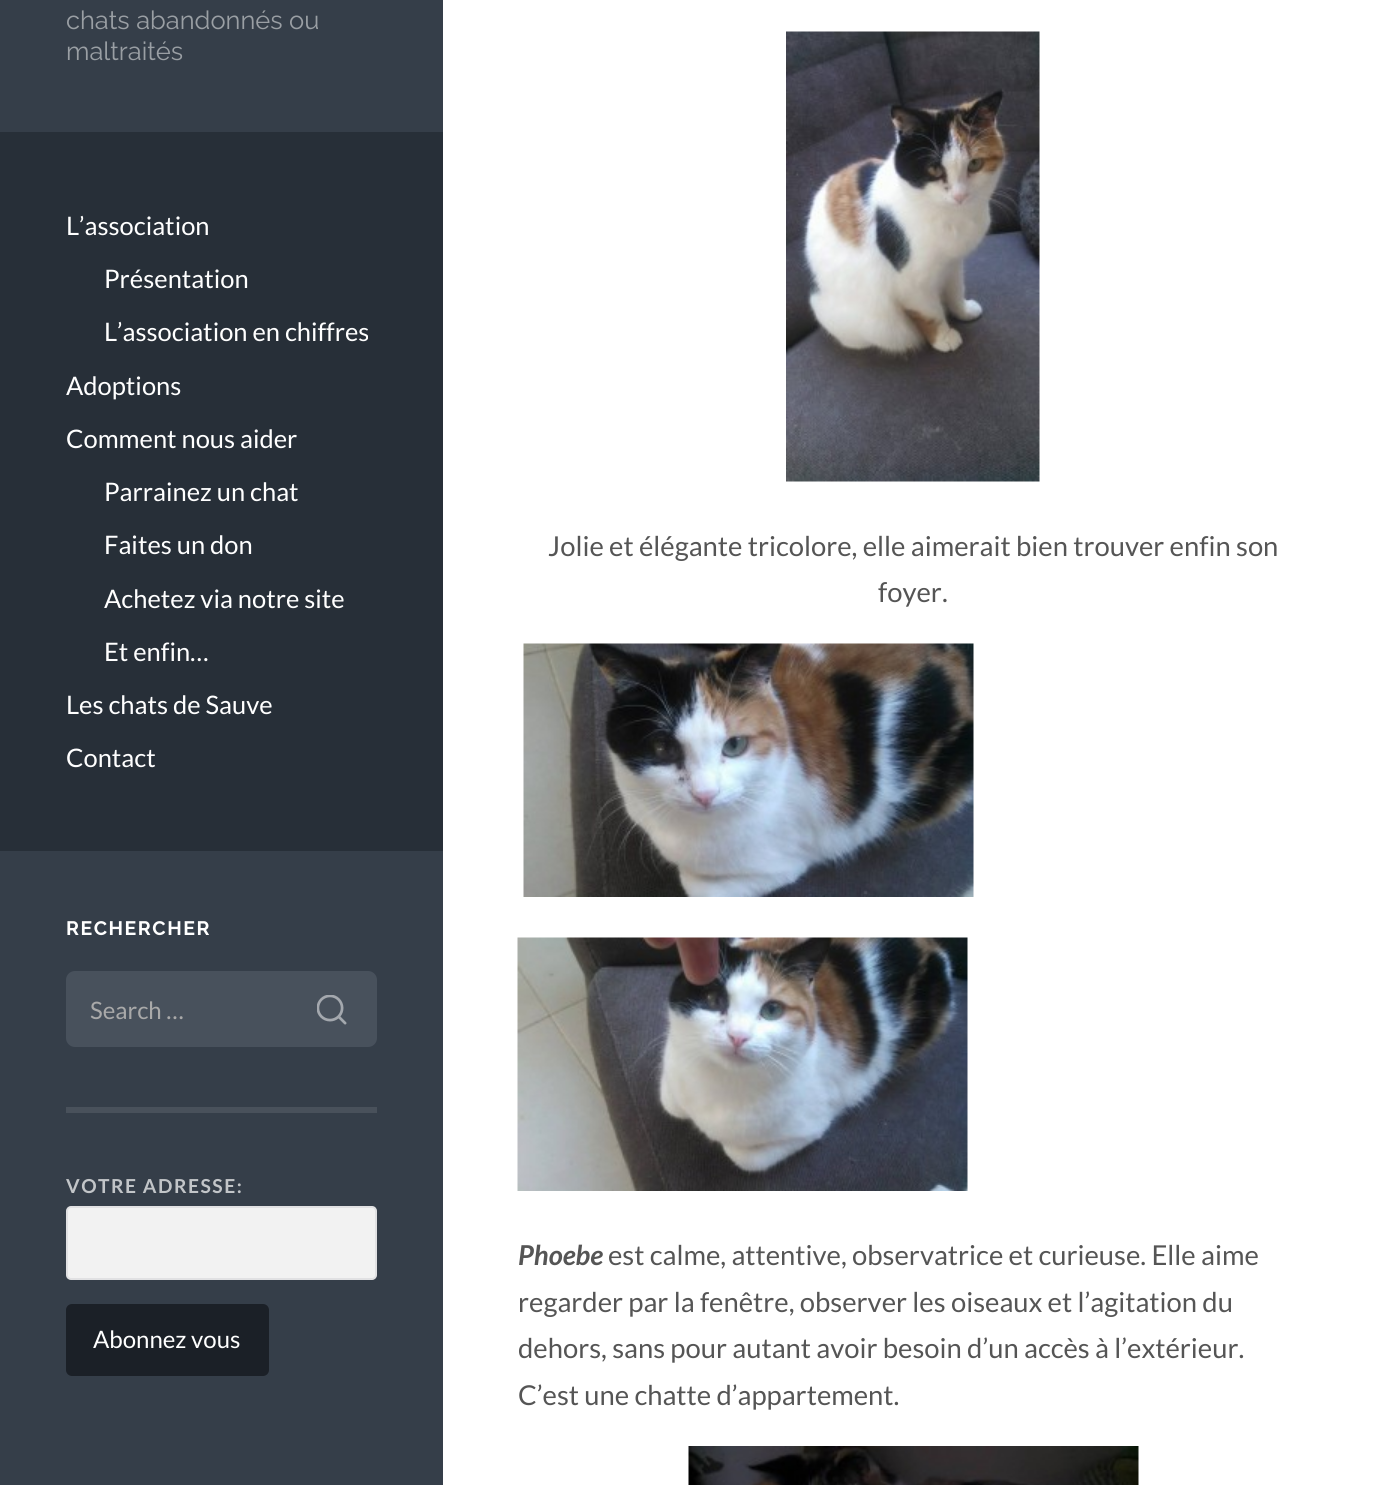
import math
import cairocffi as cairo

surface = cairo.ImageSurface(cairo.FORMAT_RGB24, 1382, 1485)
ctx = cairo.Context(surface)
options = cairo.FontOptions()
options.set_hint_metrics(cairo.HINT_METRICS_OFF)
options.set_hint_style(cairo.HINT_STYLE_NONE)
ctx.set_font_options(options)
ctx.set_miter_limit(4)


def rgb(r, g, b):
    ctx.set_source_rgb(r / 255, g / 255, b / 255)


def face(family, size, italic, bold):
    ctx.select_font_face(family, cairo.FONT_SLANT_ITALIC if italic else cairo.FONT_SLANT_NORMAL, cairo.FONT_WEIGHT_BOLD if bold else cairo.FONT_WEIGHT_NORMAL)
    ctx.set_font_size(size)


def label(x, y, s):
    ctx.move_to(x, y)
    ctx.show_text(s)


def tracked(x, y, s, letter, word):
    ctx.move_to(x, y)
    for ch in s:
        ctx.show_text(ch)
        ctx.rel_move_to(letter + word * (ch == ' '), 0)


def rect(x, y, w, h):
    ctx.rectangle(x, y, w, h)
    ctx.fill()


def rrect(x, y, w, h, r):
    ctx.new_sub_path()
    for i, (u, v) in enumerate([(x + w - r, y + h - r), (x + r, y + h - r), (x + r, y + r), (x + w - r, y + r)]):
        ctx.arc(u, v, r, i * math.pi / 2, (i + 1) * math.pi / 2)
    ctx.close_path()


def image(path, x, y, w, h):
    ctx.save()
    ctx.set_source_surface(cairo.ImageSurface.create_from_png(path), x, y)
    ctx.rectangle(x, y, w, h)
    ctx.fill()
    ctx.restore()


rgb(53, 62, 73)
ctx.paint()
face('Raleway Thin', 25.5, 0, 0)
rgb(154, 159, 164)
label(66, 29, 'chats abandonnés ou')
label(66, 60, 'maltraités')
rgb(39, 47, 56)
rect(0, 132, 443, 719)
face('Lato', 25.5, 0, 0)
rgb(255, 255, 255)
label(66, 235, 'L’association')
label(104, 288, 'Présentation')
label(104, 341, 'L’association en chiffres')
label(66, 395, 'Adoptions')
label(66, 448, 'Comment nous aider')
label(104, 501, 'Parrainez un chat')
label(104, 554, 'Faites un don')
label(104, 608, 'Achetez via notre site')
label(104, 661, 'Et enfin…')
label(66, 714, 'Les chats de Sauve')
label(66, 767, 'Contact')
rgb(73, 81, 91)
rect(66, 1107, 311, 6)
face('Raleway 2 Thin', 19.5, 0, 0)
rgb(255, 255, 255)
tracked(66, 935, 'RECHERCHER', 1.5, 0)
rgb(72, 81, 92)
rrect(66, 971, 311, 76, 9)
ctx.fill()
face('Lato', 24, 0, 0)
rgb(169, 169, 169)
label(90, 1019, 'Search …')
image('image0.png', 317, 995, 30, 30)
face('Lato', 19.25, 0, 1)
rgb(194, 197, 200)
tracked(66, 1193, 'VOTRE ADRESSE:', 1.5, 0)
rgb(242, 242, 242)
rrect(67, 1207, 309, 72, 4)
ctx.fill_preserve()
rgb(225, 225, 227)
ctx.stroke()
rgb(27, 32, 39)
rrect(66, 1304, 203, 72, 6)
ctx.fill()
face('Lato', 24, 0, 0)
rgb(255, 255, 255)
label(93, 1348, 'Abonnez vous')
rect(443, 0, 939, 1485)
image('image1.png', 786, 31, 254, 451)
face('Lato', 27.4, 0, 0)
rgb(85, 85, 85)
label(548, 556, 'Jolie et élégante tricolore, elle aimerait bien trouver enfin son')
label(878, 602, 'foyer.')
image('image2.png', 523, 643, 451, 254)
image('image3.png', 517, 937, 451, 254)
face('Lato', 27.4, 1, 1)
label(518, 1265, 'Phoebe')
face('Lato', 27.4, 0, 0)
label(608, 1265, 'est calme, attentive, observatrice et curieuse. Elle aime')
label(518, 1312, 'regarder par la fenêtre, observer les oiseaux et l’agitation du')
label(518, 1358, 'dehors, sans pour autant avoir besoin d’un accès à l’extérieur.')
label(518, 1405, 'C’est une chatte d’appartement.')
image('image4.png', 688, 1446, 451, 39)
surface.write_to_png('render.png')
